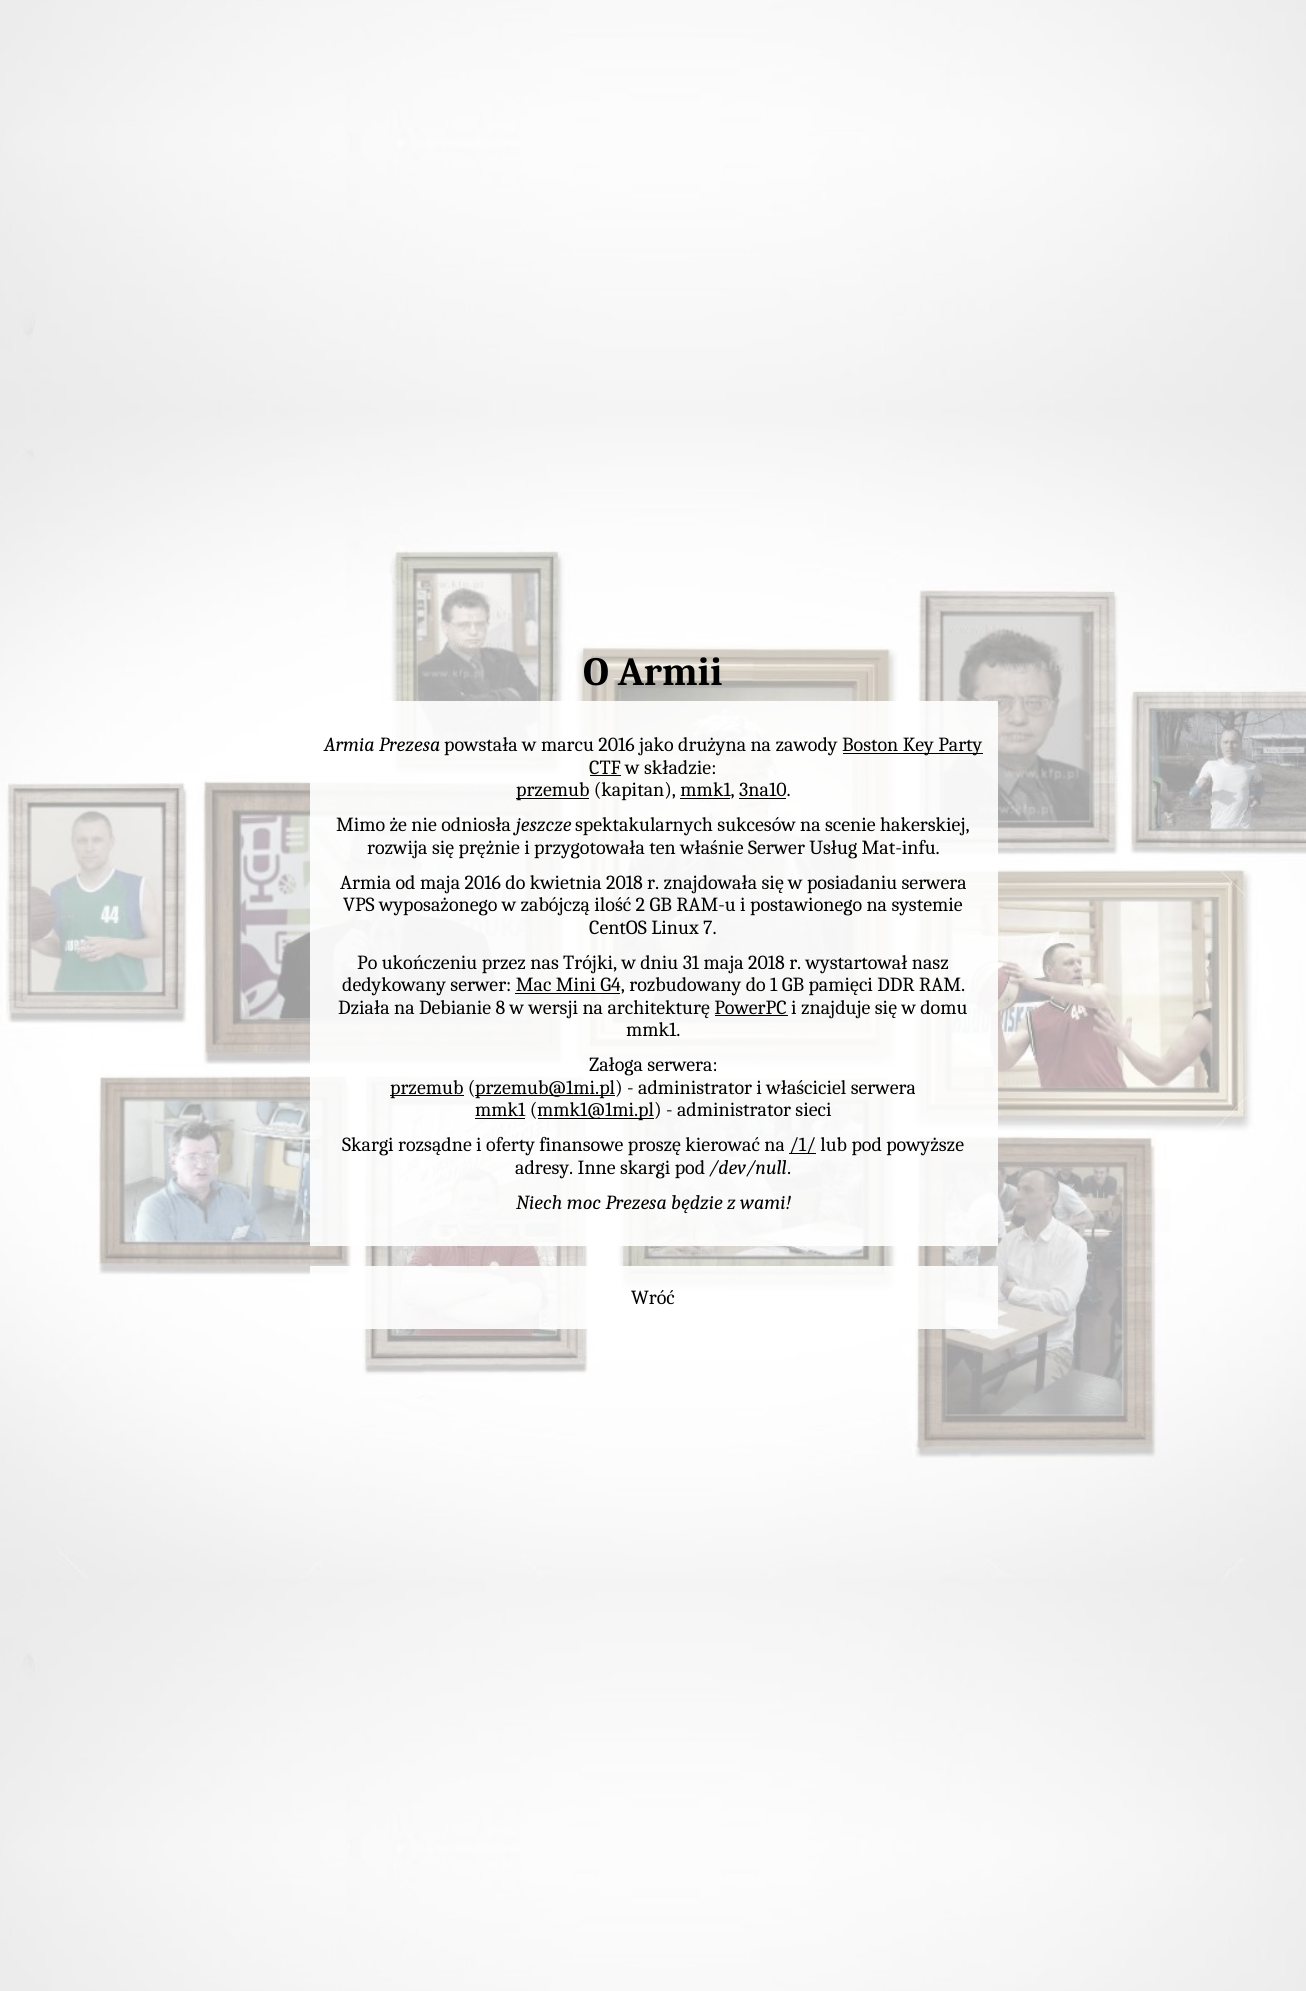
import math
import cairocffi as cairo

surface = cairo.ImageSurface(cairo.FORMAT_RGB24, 1306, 1991)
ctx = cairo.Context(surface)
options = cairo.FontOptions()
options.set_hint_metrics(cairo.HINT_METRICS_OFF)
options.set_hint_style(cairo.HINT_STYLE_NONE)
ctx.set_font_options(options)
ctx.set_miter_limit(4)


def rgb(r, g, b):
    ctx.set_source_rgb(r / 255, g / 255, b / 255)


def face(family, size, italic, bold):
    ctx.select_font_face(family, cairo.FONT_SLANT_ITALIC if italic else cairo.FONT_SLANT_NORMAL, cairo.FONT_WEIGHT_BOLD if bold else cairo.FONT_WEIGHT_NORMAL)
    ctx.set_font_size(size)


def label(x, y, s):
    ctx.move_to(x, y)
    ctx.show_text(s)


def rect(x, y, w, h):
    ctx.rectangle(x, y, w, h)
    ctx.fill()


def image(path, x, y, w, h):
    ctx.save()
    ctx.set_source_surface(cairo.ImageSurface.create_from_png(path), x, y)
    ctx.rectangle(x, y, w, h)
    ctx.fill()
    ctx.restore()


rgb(255, 255, 255)
ctx.paint()
image('image0.png', 0, 0, 1306, 1991)
face('Caladea', 40, 0, 1)
rgb(0, 0, 0)
label(583, 685, 'O Armii')
ctx.set_source_rgba(1, 1, 1, 0.9)
rect(310, 701, 688, 545)
face('Caladea', 20, 1, 0)
rgb(0, 0, 0)
label(324, 751, 'Armia Prezesa')
face('Caladea', 20, 0, 0)
label(444, 751, 'powstała w marcu 2016 jako drużyna na zawody')
rect(843, 753, 140, 1)
label(842, 751, 'Boston Key Party')
label(589, 774, 'CTF w składzie:')
rect(590, 775, 31, 1)
rect(516, 798, 73, 1)
label(516, 796, 'przemub (kapitan), mmk1, 3na10.')
rect(680, 798, 50, 1)
rect(739, 798, 47, 1)
label(336, 831, 'Mimo że nie odniosła')
face('Caladea', 20, 1, 0)
label(516, 831, 'jeszcze')
face('Caladea', 20, 0, 0)
label(575, 831, 'spektakularnych sukcesów na scenie hakerskiej,')
label(367, 854, 'rozwija się prężnie i przygotowała ten właśnie Serwer Usług Mat-infu.')
label(340, 889, 'Armia od maja 2016 do kwietnia 2018 r. znajdowała się w posiadaniu serwera')
label(343, 911, 'VPS wyposażonego w zabójczą ilość 2 GB RAM-u i postawionego na systemie')
label(589, 934, 'CentOS Linux 7.')
label(357, 969, 'Po ukończeniu przez nas Trójki, w dniu 31 maja 2018 r. wystartował nasz')
label(342, 991, 'dedykowany serwer: Mac Mini G4, rozbudowany do 1 GB pamięci DDR RAM.')
rect(515, 993, 105, 1)
label(338, 1014, 'Działa na Debianie 8 w wersji na architekturę PowerPC i znajduje się w domu')
rect(715, 1015, 73, 1)
label(626, 1036, 'mmk1.')
label(589, 1071, 'Załoga serwera:')
rect(390, 1095, 74, 1)
label(390, 1094, 'przemub (')
rect(475, 1095, 140, 1)
label(475, 1094, 'przemub@1mi.pl) - administrator i właściciel serwera')
rect(475, 1118, 50, 1)
label(475, 1116, 'mmk1 (')
rect(538, 1118, 116, 1)
label(537, 1116, 'mmk1@1mi.pl) - administrator sieci')
label(342, 1151, 'Skargi rozsądne i oferty finansowe proszę kierować na')
rect(789, 1153, 27, 1)
label(789, 1151, '/1/ lub pod powyższe')
label(515, 1174, 'adresy. Inne skargi pod')
face('Caladea', 20, 1, 0)
label(709, 1174, '/dev/null')
face('Caladea', 20, 0, 0)
label(787, 1174, '.')
face('Caladea', 20, 1, 0)
label(516, 1209, 'Niech moc Prezesa będzie z wami!')
ctx.set_source_rgba(1, 1, 1, 0.9)
rect(310, 1266, 688, 63)
face('Caladea', 20, 0, 0)
rgb(0, 0, 0)
label(631, 1304, 'Wróć')
surface.write_to_png('render.png')
